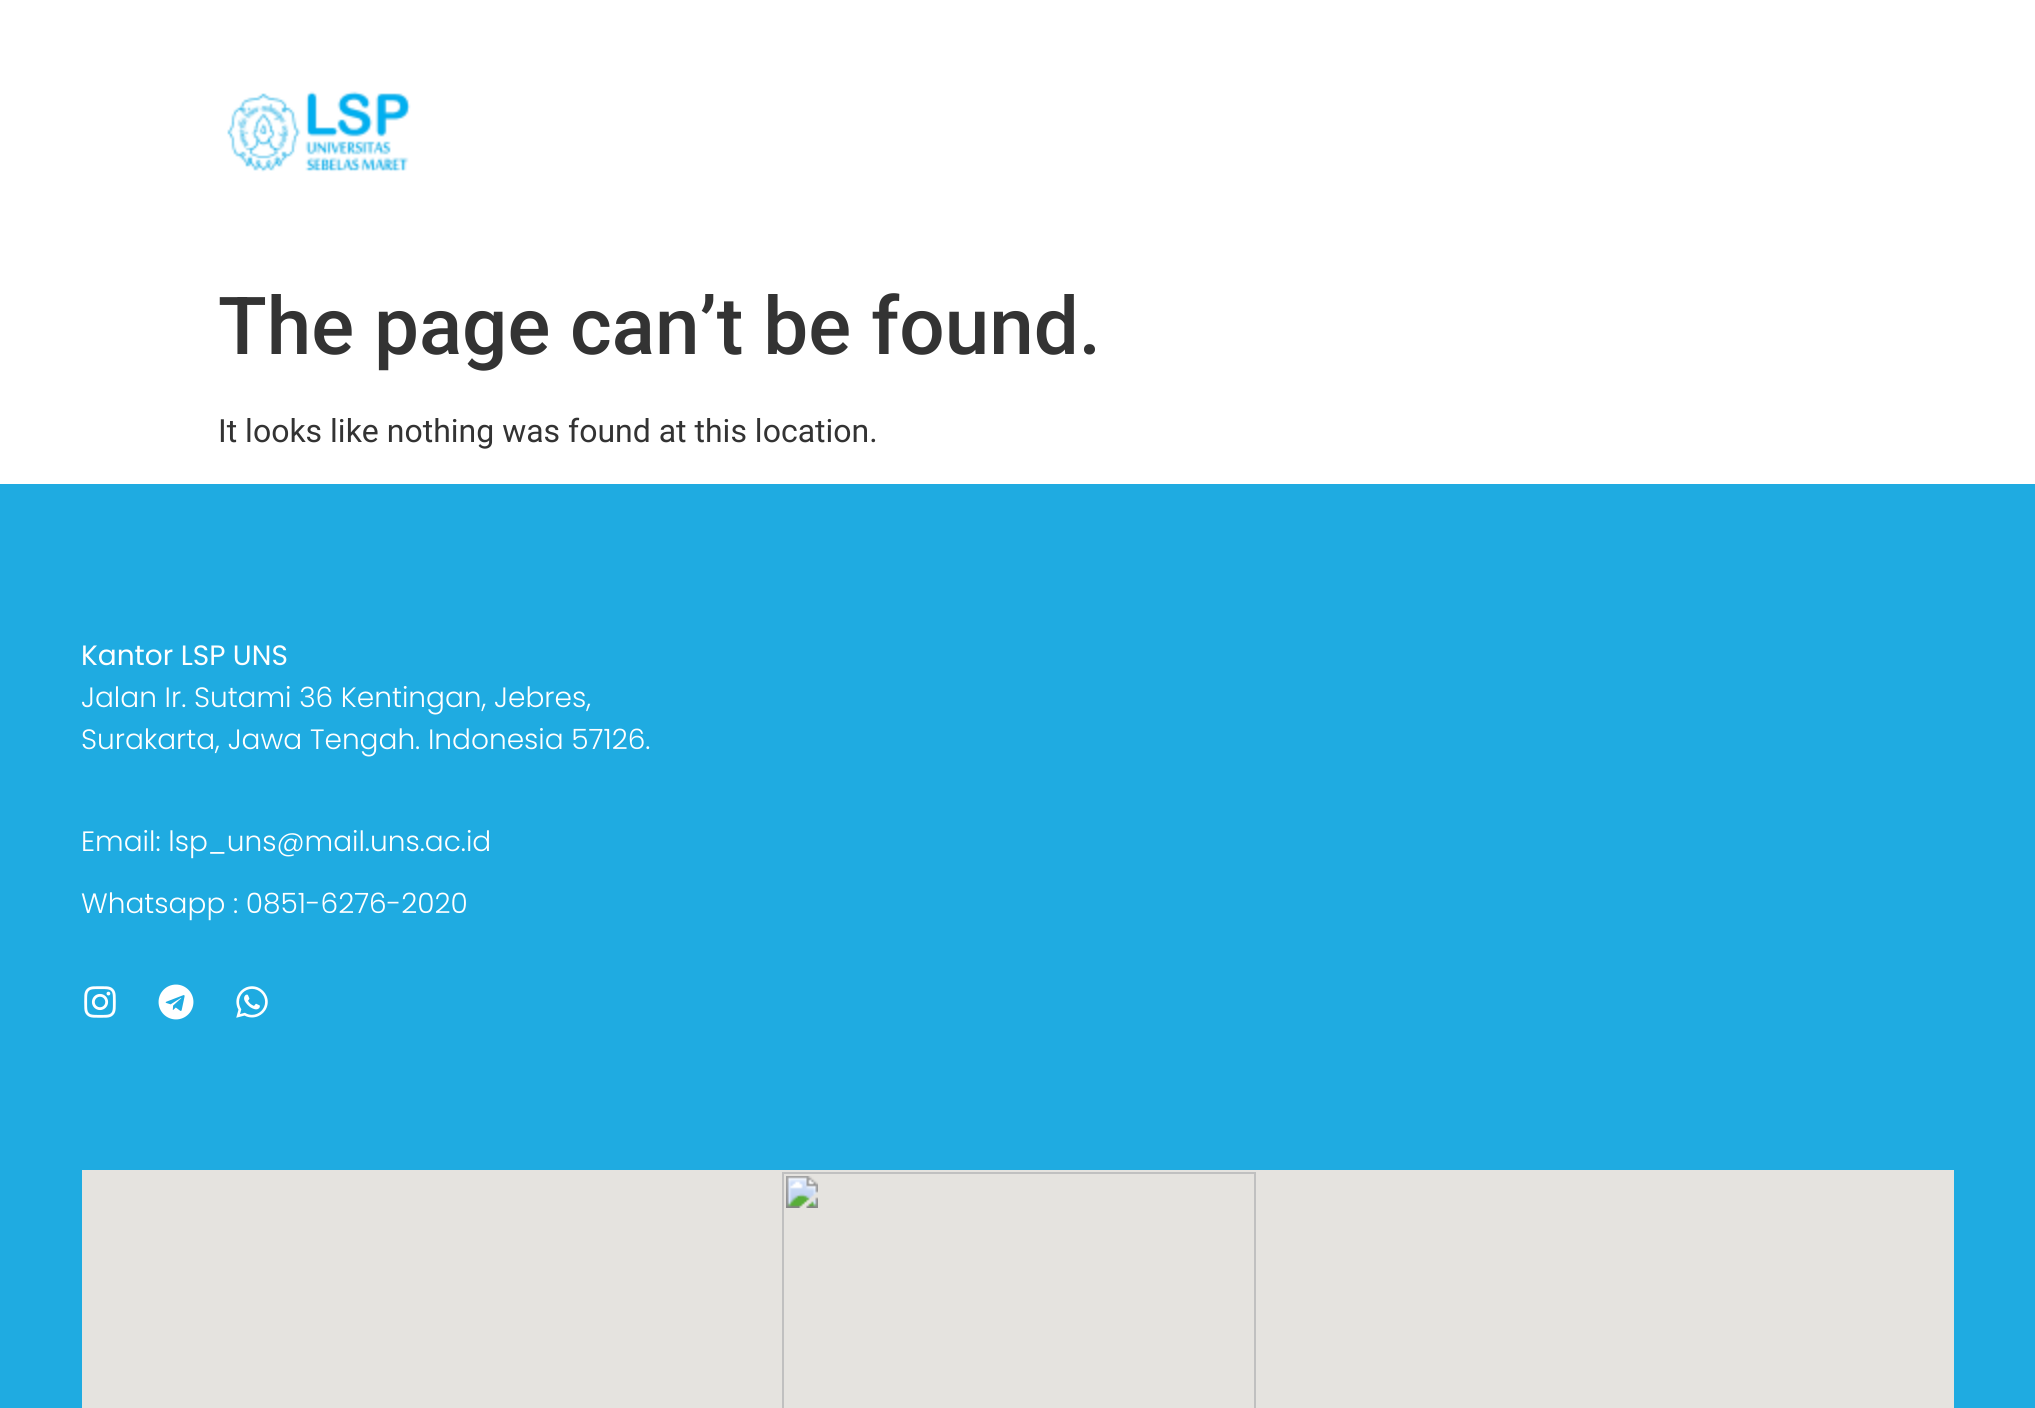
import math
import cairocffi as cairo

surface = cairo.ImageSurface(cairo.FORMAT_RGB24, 2035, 1408)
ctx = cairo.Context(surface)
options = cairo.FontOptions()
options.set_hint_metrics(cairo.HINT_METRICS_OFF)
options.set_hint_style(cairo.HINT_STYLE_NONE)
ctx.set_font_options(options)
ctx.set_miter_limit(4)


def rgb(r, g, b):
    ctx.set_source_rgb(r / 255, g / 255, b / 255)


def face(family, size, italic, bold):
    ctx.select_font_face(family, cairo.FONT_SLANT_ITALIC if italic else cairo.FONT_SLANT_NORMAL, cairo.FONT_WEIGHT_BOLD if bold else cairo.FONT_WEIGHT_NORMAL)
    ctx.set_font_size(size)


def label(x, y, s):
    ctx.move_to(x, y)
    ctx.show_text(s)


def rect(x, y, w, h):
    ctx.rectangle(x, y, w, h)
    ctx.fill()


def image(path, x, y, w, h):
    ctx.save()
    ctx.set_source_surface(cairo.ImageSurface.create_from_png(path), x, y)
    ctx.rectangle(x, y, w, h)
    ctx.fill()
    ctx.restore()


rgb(255, 255, 255)
ctx.paint()
image('image0.png', 227, 91, 184, 81)
face('Roboto Medium', 80, 0, 0)
rgb(51, 51, 51)
label(218, 354, 'The page can’t be found.')
face('Roboto', 32, 0, 0)
label(218, 442, 'It looks like nothing was found at this location.')
rgb(31, 171, 225)
rect(0, 484, 2035, 924)
face('Poppins', 28, 0, 0)
rgb(255, 255, 255)
label(81, 665, 'Kantor LSP UNS')
face('Poppins Light', 28, 0, 0)
label(81, 707, 'Jalan Ir. Sutami 36 Kentingan, Jebres,')
label(81, 749, 'Surakarta, Jawa Tengah. Indonesia 57126.')
label(81, 851, 'Email: lsp_uns@mail.uns.ac.id')
label(81, 913, 'Whatsapp : 0851-6276-2020')
image('image1.png', 84, 986, 32, 32)
image('image2.png', 158, 984, 36, 36)
image('image3.png', 236, 986, 32, 32)
image('image4.png', 82, 1170, 1872, 238)
surface.write_to_png('render.png')
